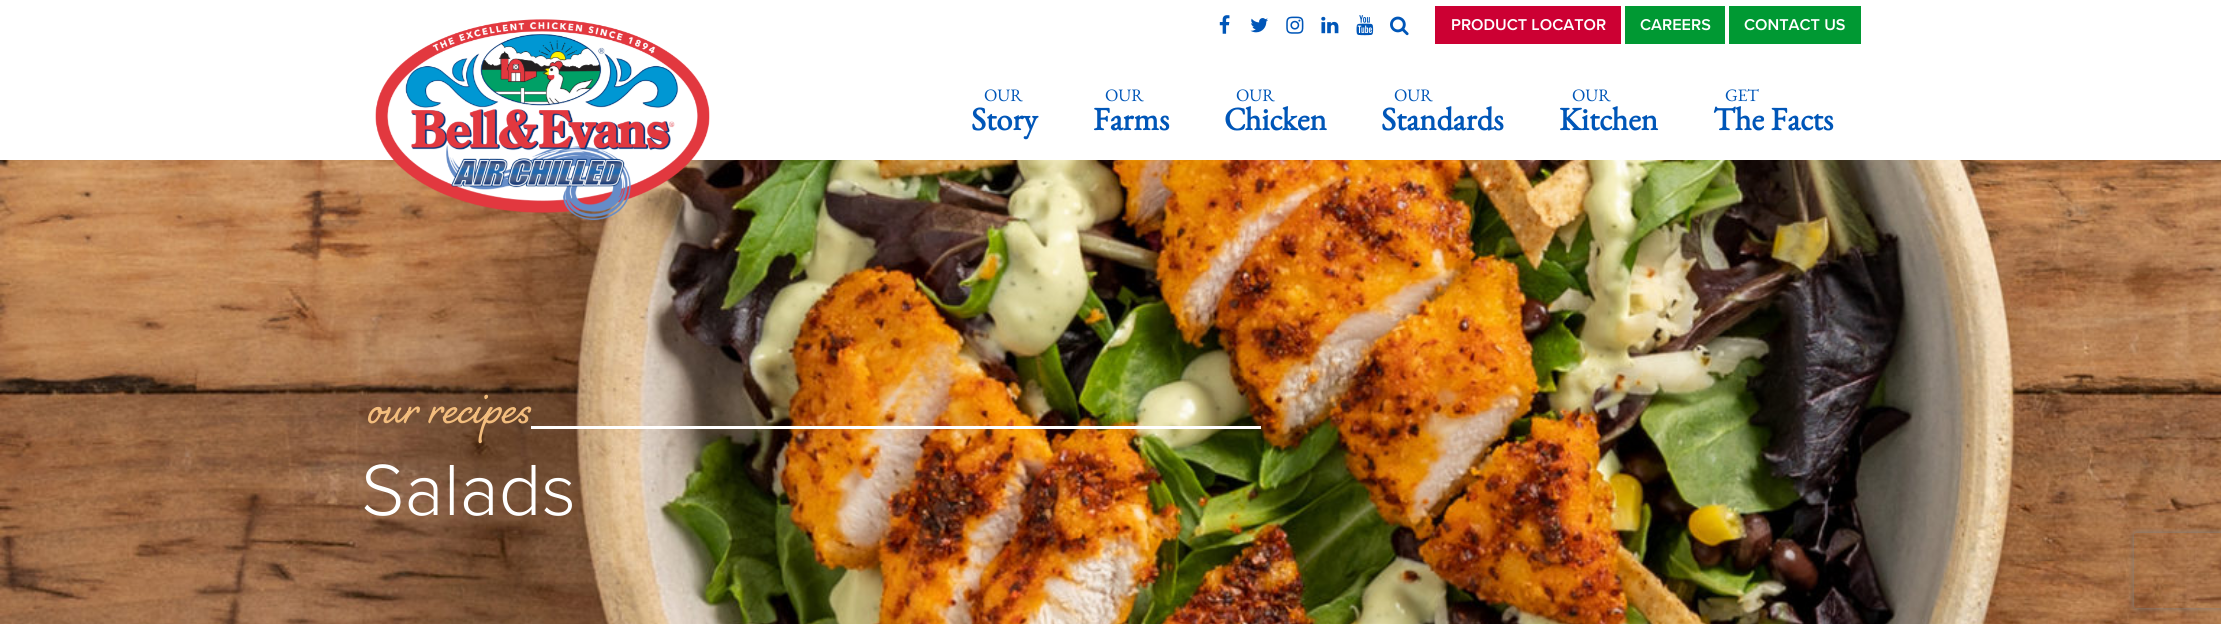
import math
import cairocffi as cairo

surface = cairo.ImageSurface(cairo.FORMAT_RGB24, 2221, 624)
ctx = cairo.Context(surface)
options = cairo.FontOptions()
options.set_hint_metrics(cairo.HINT_METRICS_OFF)
options.set_hint_style(cairo.HINT_STYLE_NONE)
ctx.set_font_options(options)
ctx.set_miter_limit(4)


def rgb(r, g, b):
    ctx.set_source_rgb(r / 255, g / 255, b / 255)


def face(family, size, italic, bold):
    ctx.select_font_face(family, cairo.FONT_SLANT_ITALIC if italic else cairo.FONT_SLANT_NORMAL, cairo.FONT_WEIGHT_BOLD if bold else cairo.FONT_WEIGHT_NORMAL)
    ctx.set_font_size(size)


def label(x, y, s):
    ctx.move_to(x, y)
    ctx.show_text(s)


def rect(x, y, w, h):
    ctx.rectangle(x, y, w, h)
    ctx.fill()


def rrect(x, y, w, h, r):
    ctx.new_sub_path()
    for i, (u, v) in enumerate([(x + w - r, y + h - r), (x + r, y + h - r), (x + r, y + r), (x + w - r, y + r)]):
        ctx.arc(u, v, r, i * math.pi / 2, (i + 1) * math.pi / 2)
    ctx.close_path()


def soft_shadow(x, y, w, h, r, blur, alpha):
    ctx.push_group_with_content(cairo.CONTENT_ALPHA)
    ctx.set_operator(cairo.OPERATOR_SOURCE)
    for i in range(15, -16, -2):
        e = blur * i / 6
        if min(w, h) + 2 * e > 0:
            ctx.set_source_rgba(0, 0, 0, alpha * math.erfc((i - 1) / 8.5) / 2)
            rrect(x - e, y - e, w + 2 * e, h + 2 * e, max(0, min(r + e + blur * .6, min(w, h) / 2 + e)))
            ctx.fill()
    ctx.mask(ctx.pop_group())


def image(path, x, y, w, h):
    ctx.save()
    ctx.set_source_surface(cairo.ImageSurface.create_from_png(path), x, y)
    ctx.rectangle(x, y, w, h)
    ctx.fill()
    ctx.restore()


rgb(255, 255, 255)
ctx.paint()
image('image7.png', 0, 160, 2221, 464)
image('image0.png', 375, 19, 335, 202)
image('image1.png', 1219, 15, 11, 19)
image('image2.png', 1250, 18, 18, 15)
image('image3.png', 1286, 16, 18, 18)
image('image4.png', 1321, 16, 18, 18)
image('image5.png', 1356, 15, 18, 21)
image('image6.png', 1390, 16, 19, 20)
rgb(204, 0, 51)
rect(1435, 6, 186, 38)
face('Proxima Nova SemiBold', 16.25, 0, 0)
rgb(255, 255, 255)
label(1451, 30, 'PRODUCT LOCATOR')
rgb(0, 153, 51)
rect(1625, 6, 100, 38)
rgb(255, 255, 255)
label(1640, 30, 'CAREERS')
rgb(0, 153, 51)
rect(1729, 6, 132, 38)
rgb(255, 255, 255)
label(1744, 30, 'CONTACT US')
face('EB Garamond', 17.5, 0, 0)
rgb(0, 86, 184)
label(984, 101, 'OUR')
face('EB Garamond', 32.5, 0, 1)
label(971, 130, 'Story')
face('EB Garamond', 17.5, 0, 0)
label(1105, 101, 'OUR')
face('EB Garamond', 32.5, 0, 1)
label(1093, 130, 'Farms')
face('EB Garamond', 17.5, 0, 0)
label(1236, 101, 'OUR')
face('EB Garamond', 32.5, 0, 1)
label(1224, 130, 'Chicken')
face('EB Garamond', 17.5, 0, 0)
label(1394, 101, 'OUR')
face('EB Garamond', 32.5, 0, 1)
label(1381, 130, 'Standards')
face('EB Garamond', 17.5, 0, 0)
label(1572, 101, 'OUR')
face('EB Garamond', 32.5, 0, 1)
label(1559, 130, 'Kitchen')
face('EB Garamond', 17.5, 0, 0)
label(1725, 101, 'GET')
face('EB Garamond', 32.5, 0, 1)
label(1713, 130, 'The Facts')
face('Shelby', 67.5, 0, 0)
rgb(243, 189, 125)
label(368, 423, 'our recipes')
rgb(255, 255, 255)
rect(531, 426, 730, 3)
face('Proxima Nova Light', 75, 0, 0)
label(361, 515, 'Salads')
ctx.save()
ctx.set_fill_rule(cairo.FILL_RULE_EVEN_ODD)
ctx.new_path()
ctx.move_to(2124, 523)
ctx.line_to(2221, 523)
ctx.line_to(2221, 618)
ctx.line_to(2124, 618)
ctx.close_path()
ctx.move_to(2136.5, 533)
ctx.line_to(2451.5, 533)
ctx.curve_to(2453, 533, 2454, 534, 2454, 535.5)
ctx.line_to(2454, 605.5)
ctx.curve_to(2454, 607, 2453, 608, 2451.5, 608)
ctx.line_to(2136.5, 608)
ctx.curve_to(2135, 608, 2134, 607, 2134, 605.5)
ctx.line_to(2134, 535.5)
ctx.curve_to(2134, 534, 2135, 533, 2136.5, 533)
ctx.close_path()
ctx.clip()
rgb(128, 128, 128)
soft_shadow(2134, 533, 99, 75, 2.5, 3, 1)
ctx.restore()
surface.write_to_png('render.png')
